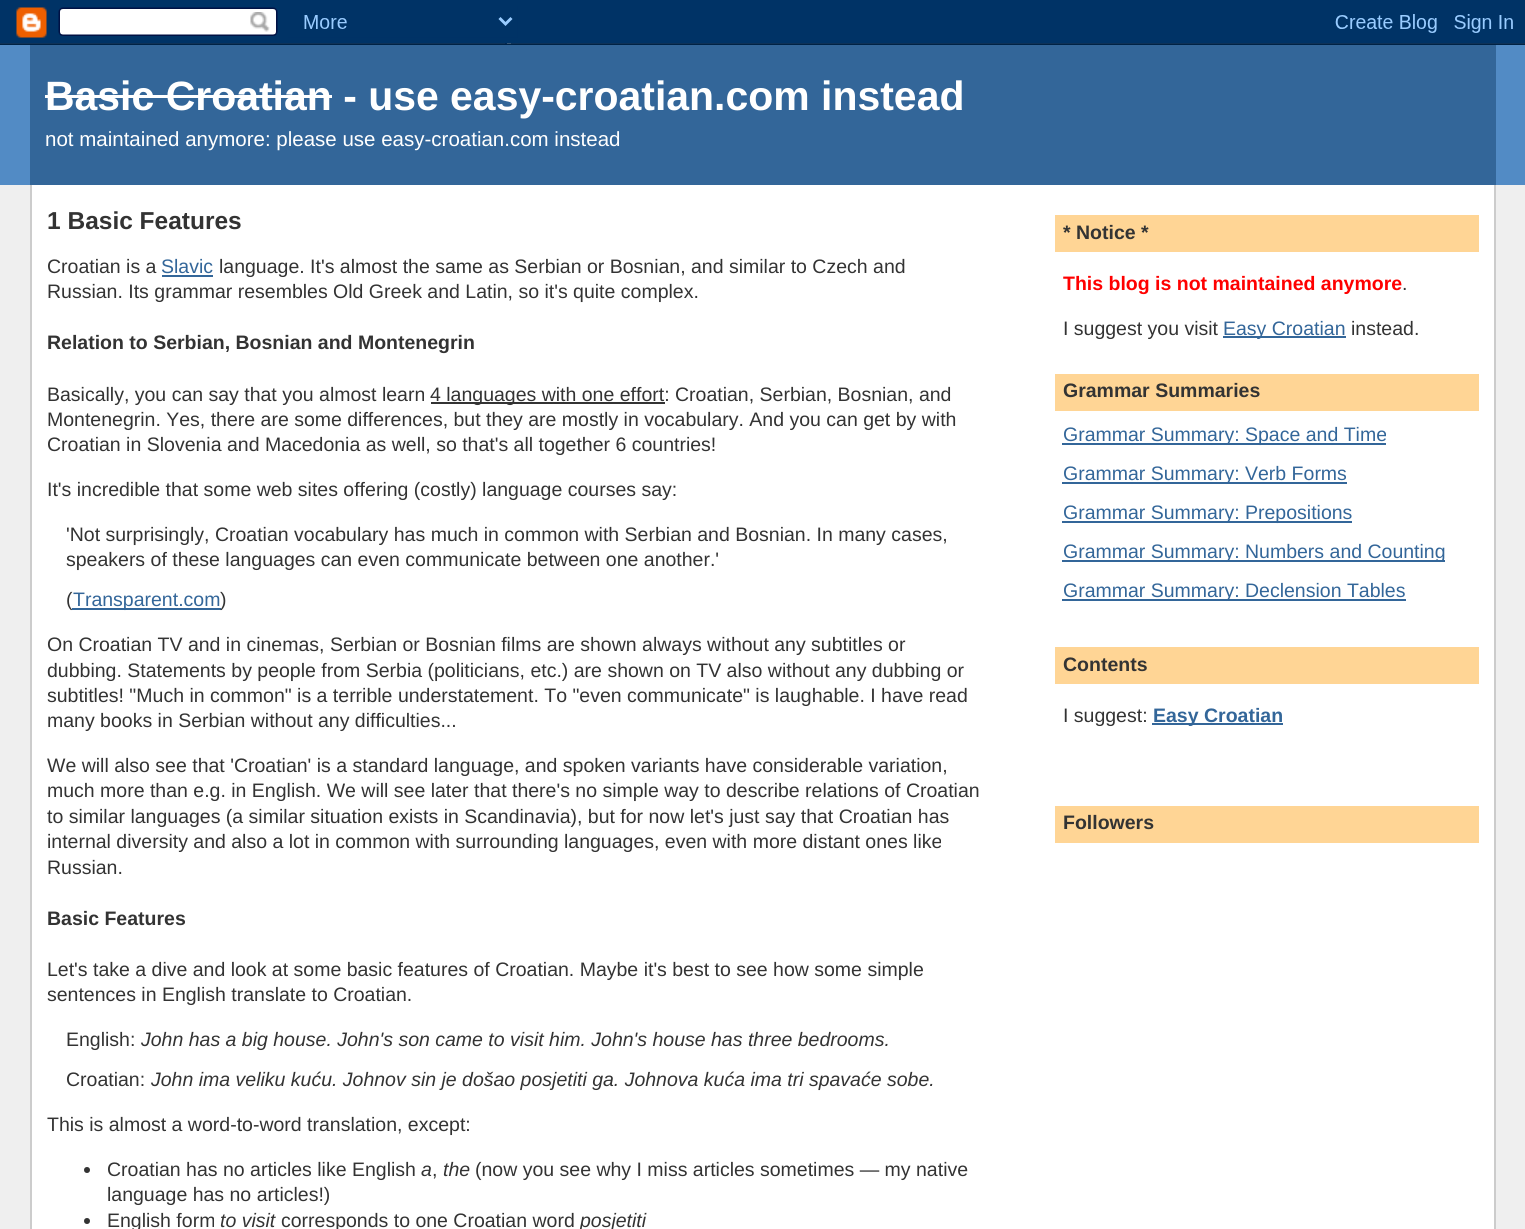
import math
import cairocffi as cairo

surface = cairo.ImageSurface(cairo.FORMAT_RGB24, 1525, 1229)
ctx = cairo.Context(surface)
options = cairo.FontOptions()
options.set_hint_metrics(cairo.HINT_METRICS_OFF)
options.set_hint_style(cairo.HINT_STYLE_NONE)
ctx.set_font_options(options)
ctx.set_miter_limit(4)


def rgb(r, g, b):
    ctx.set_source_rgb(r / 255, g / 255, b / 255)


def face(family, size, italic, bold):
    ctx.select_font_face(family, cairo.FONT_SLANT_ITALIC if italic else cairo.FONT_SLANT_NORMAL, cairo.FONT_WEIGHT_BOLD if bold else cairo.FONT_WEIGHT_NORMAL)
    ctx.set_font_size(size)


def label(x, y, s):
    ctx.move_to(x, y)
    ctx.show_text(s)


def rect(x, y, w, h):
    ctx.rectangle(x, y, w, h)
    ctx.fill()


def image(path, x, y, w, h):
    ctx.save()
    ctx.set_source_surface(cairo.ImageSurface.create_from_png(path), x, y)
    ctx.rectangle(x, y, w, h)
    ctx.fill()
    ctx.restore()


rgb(239, 239, 239)
ctx.paint()
image('image0.png', 0, 0, 1525, 45)
rgb(82, 139, 197)
rect(0, 45, 1525, 140)
rgb(51, 102, 153)
rect(30, 45, 1466, 140)
face('Liberation Sans', 40.95, 0, 1)
rgb(255, 255, 255)
label(45, 110, 'Basic Croatian - use easy-croatian.com instead')
rect(45, 95, 287, 3)
face('Liberation Sans', 20.5, 0, 0)
label(45, 146, 'not maintained anymore: please use easy-croatian.com instead')
rect(32, 185, 1462, 1044)
rgb(204, 204, 204)
rect(1494, 185, 2, 1044)
rect(30, 185, 2, 1044)
face('Liberation Sans', 24.5, 0, 1)
rgb(51, 51, 51)
label(47, 229, '1 Basic Features')
face('Liberation Sans', 19.5, 0, 0)
label(47, 273, 'Croatian is a')
rgb(51, 102, 153)
label(161, 273, 'Slavic')
rect(162, 275, 51, 2)
rgb(51, 51, 51)
label(219, 273, 'language. It\'s almost the same as Serbian or Bosnian, and similar to Czech and')
label(47, 298, 'Russian. Its grammar resembles Old Greek and Latin, so it\'s quite complex.')
face('Liberation Sans', 19.5, 0, 1)
label(47, 349, 'Relation to Serbian, Bosnian and Montenegrin')
face('Liberation Sans', 19.5, 0, 0)
label(47, 401, 'Basically, you can say that you almost learn')
rect(431, 402, 234, 2)
label(430, 401, '4 languages with one effort: Croatian, Serbian, Bosnian, and')
label(47, 426, 'Montenegrin. Yes, there are some differences, but they are mostly in vocabulary. And you can get by with')
label(47, 451, 'Croatian in Slovenia and Macedonia as well, so that\'s all together 6 countries!')
label(47, 496, 'It\'s incredible that some web sites offering (costly) language courses say:')
label(66, 541, '\'Not surprisingly, Croatian vocabulary has much in common with Serbian and Bosnian. In many cases,')
label(66, 566, 'speakers of these languages can even communicate between one another.\'')
label(66, 606, '(')
rgb(51, 102, 153)
rect(72, 608, 149, 2)
label(73, 606, 'Transparent.com')
rgb(51, 51, 51)
label(220, 606, ')')
label(47, 651, 'On Croatian TV and in cinemas, Serbian or Bosnian films are shown always without any subtitles or')
label(47, 677, 'dubbing. Statements by people from Serbia (politicians, etc.) are shown on TV also without any dubbing or')
label(47, 702, 'subtitles! "Much in common" is a terrible understatement. To "even communicate" is laughable. I have read')
label(47, 727, 'many books in Serbian without any difficulties...')
label(47, 772, 'We will also see that \'Croatian\' is a standard language, and spoken variants have considerable variation,')
label(47, 797, 'much more than e.g. in English. We will see later that there\'s no simple way to describe relations of Croatian')
label(47, 823, 'to similar languages (a similar situation exists in Scandinavia), but for now let\'s just say that Croatian has')
label(47, 848, 'internal diversity and also a lot in common with surrounding languages, even with more distant ones like')
label(47, 874, 'Russian.')
face('Liberation Sans', 19.5, 0, 1)
label(47, 925, 'Basic Features')
face('Liberation Sans', 19.5, 0, 0)
label(47, 976, 'Let\'s take a dive and look at some basic features of Croatian. Maybe it\'s best to see how some simple')
label(47, 1001, 'sentences in English translate to Croatian.')
label(66, 1046, 'English:')
face('Liberation Sans', 19.5, 1, 0)
label(141, 1046, 'John has a big house. John\'s son came to visit him. John\'s house has three bedrooms.')
face('Liberation Sans', 19.5, 0, 0)
label(66, 1086, 'Croatian:')
face('Liberation Sans', 19.5, 1, 0)
label(151, 1086, 'John ima veliku kuću. Johnov sin je došao posjetiti ga. Johnova kuća ima tri spavaće sobe.')
face('Liberation Sans', 19.5, 0, 0)
label(47, 1131, 'This is almost a word-to-word translation, except:')
ctx.new_path()
ctx.arc(87, 1170, 3, 0, 2 * math.pi)
ctx.fill()
label(107, 1176, 'Croatian has no articles like English')
face('Liberation Sans', 19.5, 1, 0)
label(421, 1176, 'a')
label(443, 1176, 'the')
face('Liberation Sans', 19.5, 0, 0)
label(475, 1176, '(now you see why I miss articles sometimes — my native')
label(432, 1176, ',')
label(107, 1201, 'language has no articles!)')
ctx.new_path()
ctx.arc(87, 1221, 3, 0, 2 * math.pi)
ctx.fill()
label(107, 1227, 'English form')
face('Liberation Sans', 19.5, 1, 0)
label(220, 1227, 'to visit')
face('Liberation Sans', 19.5, 0, 0)
label(281, 1227, 'corresponds to one Croatian word')
face('Liberation Sans', 19.5, 1, 0)
label(580, 1227, 'posjetiti')
rgb(255, 213, 149)
rect(1055, 215, 424, 37)
face('Liberation Sans', 19.5, 0, 1)
rgb(51, 51, 51)
label(1063, 239, '* Notice *')
rgb(255, 0, 0)
label(1063, 290, 'This blog is not maintained anymore')
face('Liberation Sans', 19.5, 0, 0)
rgb(51, 51, 51)
label(1402, 290, '.')
label(1063, 335, 'I suggest you visit')
rgb(51, 102, 153)
rect(1223, 336, 123, 2)
label(1223, 335, 'Easy Croatian')
rgb(51, 51, 51)
label(1351, 335, 'instead.')
rgb(255, 213, 149)
rect(1055, 374, 424, 37)
face('Liberation Sans', 19.5, 0, 1)
rgb(51, 51, 51)
label(1063, 397, 'Grammar Summaries')
rgb(51, 102, 153)
rect(1062, 443, 324, 2)
face('Liberation Sans', 19.5, 0, 0)
label(1063, 441, 'Grammar Summary: Space and Time')
rect(1062, 482, 285, 2)
label(1063, 480, 'Grammar Summary: Verb Forms')
rect(1062, 521, 290, 2)
label(1063, 519, 'Grammar Summary: Prepositions')
rect(1062, 560, 383, 2)
label(1063, 558, 'Grammar Summary: Numbers and Counting')
rect(1062, 599, 344, 2)
label(1063, 597, 'Grammar Summary: Declension Tables')
rgb(255, 213, 149)
rect(1055, 647, 424, 37)
face('Liberation Sans', 19.5, 0, 1)
rgb(51, 51, 51)
label(1063, 671, 'Contents')
face('Liberation Sans', 19.5, 0, 0)
label(1063, 722, 'I suggest:')
rgb(51, 102, 153)
rect(1152, 723, 131, 2)
face('Liberation Sans', 19.5, 0, 1)
label(1153, 722, 'Easy Croatian')
rgb(255, 213, 149)
rect(1055, 806, 424, 37)
rgb(51, 51, 51)
label(1063, 829, 'Followers')
surface.write_to_png('render.png')
